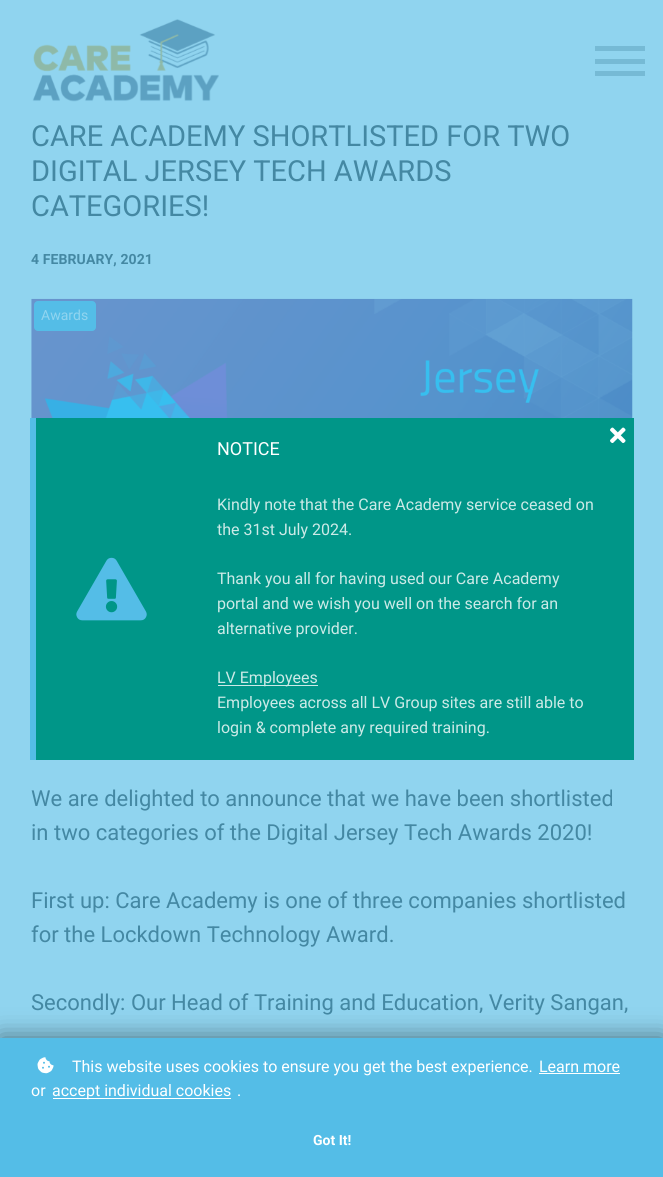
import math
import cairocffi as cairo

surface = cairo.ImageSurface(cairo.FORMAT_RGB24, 663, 1177)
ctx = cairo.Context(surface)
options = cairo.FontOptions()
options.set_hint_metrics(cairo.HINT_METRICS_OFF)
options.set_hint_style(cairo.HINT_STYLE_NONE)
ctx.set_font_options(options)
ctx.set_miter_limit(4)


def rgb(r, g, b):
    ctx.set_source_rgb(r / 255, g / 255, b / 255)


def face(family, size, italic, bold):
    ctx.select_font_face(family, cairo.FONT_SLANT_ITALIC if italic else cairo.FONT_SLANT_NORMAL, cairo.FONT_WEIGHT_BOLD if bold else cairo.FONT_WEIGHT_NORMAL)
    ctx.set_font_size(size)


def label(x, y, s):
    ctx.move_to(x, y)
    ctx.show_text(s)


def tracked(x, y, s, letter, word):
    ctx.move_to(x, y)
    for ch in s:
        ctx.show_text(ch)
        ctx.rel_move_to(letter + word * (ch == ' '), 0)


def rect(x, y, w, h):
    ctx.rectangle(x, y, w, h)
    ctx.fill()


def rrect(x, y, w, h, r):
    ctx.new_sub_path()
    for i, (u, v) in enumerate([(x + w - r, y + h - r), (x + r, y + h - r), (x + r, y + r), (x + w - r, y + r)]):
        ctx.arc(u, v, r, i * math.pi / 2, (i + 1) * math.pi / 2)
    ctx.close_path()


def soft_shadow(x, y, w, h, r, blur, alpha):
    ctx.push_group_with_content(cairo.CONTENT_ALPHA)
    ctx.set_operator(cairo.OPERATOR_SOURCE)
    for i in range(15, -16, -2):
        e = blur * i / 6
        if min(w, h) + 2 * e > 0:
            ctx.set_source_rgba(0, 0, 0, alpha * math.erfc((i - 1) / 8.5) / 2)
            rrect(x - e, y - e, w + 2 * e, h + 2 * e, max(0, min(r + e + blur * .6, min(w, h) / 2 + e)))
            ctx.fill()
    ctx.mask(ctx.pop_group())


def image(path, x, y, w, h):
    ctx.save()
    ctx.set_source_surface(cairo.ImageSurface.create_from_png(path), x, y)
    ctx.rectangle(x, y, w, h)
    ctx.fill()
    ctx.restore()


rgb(144, 212, 239)
ctx.paint()
image('image0.png', 32, 19, 187, 83)
rgb(118, 186, 213)
rect(595, 71, 50, 5)
rect(595, 46, 50, 5)
rect(595, 59, 50, 5)
face('Roboto', 29, 0, 0)
rgb(68, 136, 163)
label(31, 146, 'CARE ACADEMY SHORTLISTED FOR TWO')
label(31, 181, 'DIGITAL JERSEY TECH AWARDS')
label(31, 216, 'CATEGORIES!')
face('Roboto', 14, 0, 1)
tracked(31, 264, '4 FEBRUARY, 2021', 0.1, 0)
image('image1.png', 31, 298, 602, 120)
rgb(84, 189, 231)
rrect(34, 301, 62, 30, 4)
ctx.fill()
face('Roboto', 14, 0, 0)
rgb(144, 212, 239)
label(41, 320, 'Awards')
face('Roboto', 22, 0, 0)
rgb(68, 136, 163)
label(31, 806, 'We are delighted to announce that we have been shortlisted')
label(31, 840, 'in two categories of the Digital Jersey Tech Awards 2020!')
label(31, 908, 'First up: Care Academy is one of three companies shortlisted')
label(31, 942, 'for the Lockdown Technology Award.')
label(31, 1010, 'Secondly: Our Head of Training and Education, Verity Sangan,')
rgb(84, 189, 231)
rect(30, 418, 6, 342)
rgb(0, 150, 136)
rect(36, 418, 598, 342)
image('image2.png', 610, 427, 16, 16)
image('image3.png', 76, 557, 71, 64)
face('Roboto', 18, 0, 0)
rgb(255, 255, 255)
label(217, 455, 'NOTICE')
face('Roboto', 16, 0, 0)
rgb(204, 234, 231)
label(217, 510, 'Kindly note that the Care Academy service ceased on')
label(217, 535, 'the 31st July 2024.')
label(217, 584, 'Thank you all for having used our Care Academy')
label(217, 609, 'portal and we wish you well on the search for an')
label(217, 634, 'alternative provider.')
rect(218, 685, 100, 1)
label(217, 683, 'LV Employees')
label(217, 708, 'Employees across all LV Group sites are still able to')
label(217, 733, 'login & complete any required training.')
rgb(0, 0, 0)
soft_shadow(0, 1038, 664, 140, 0, 12.5, 0.5)
rgb(84, 189, 231)
rect(0, 1038, 663, 139)
image('image4.png', 37, 1057, 17, 17)
rgb(255, 255, 255)
label(72, 1072, 'This website uses cookies to ensure you get the best experience.')
label(539, 1072, 'Learn more')
rect(539, 1073, 81, 1)
label(31, 1096, 'or')
rect(53, 1098, 178, 1)
label(52, 1096, 'accept individual cookies')
label(237, 1096, '.')
face('Roboto', 14, 0, 1)
label(313, 1145, 'Got It!')
surface.write_to_png('render.png')
